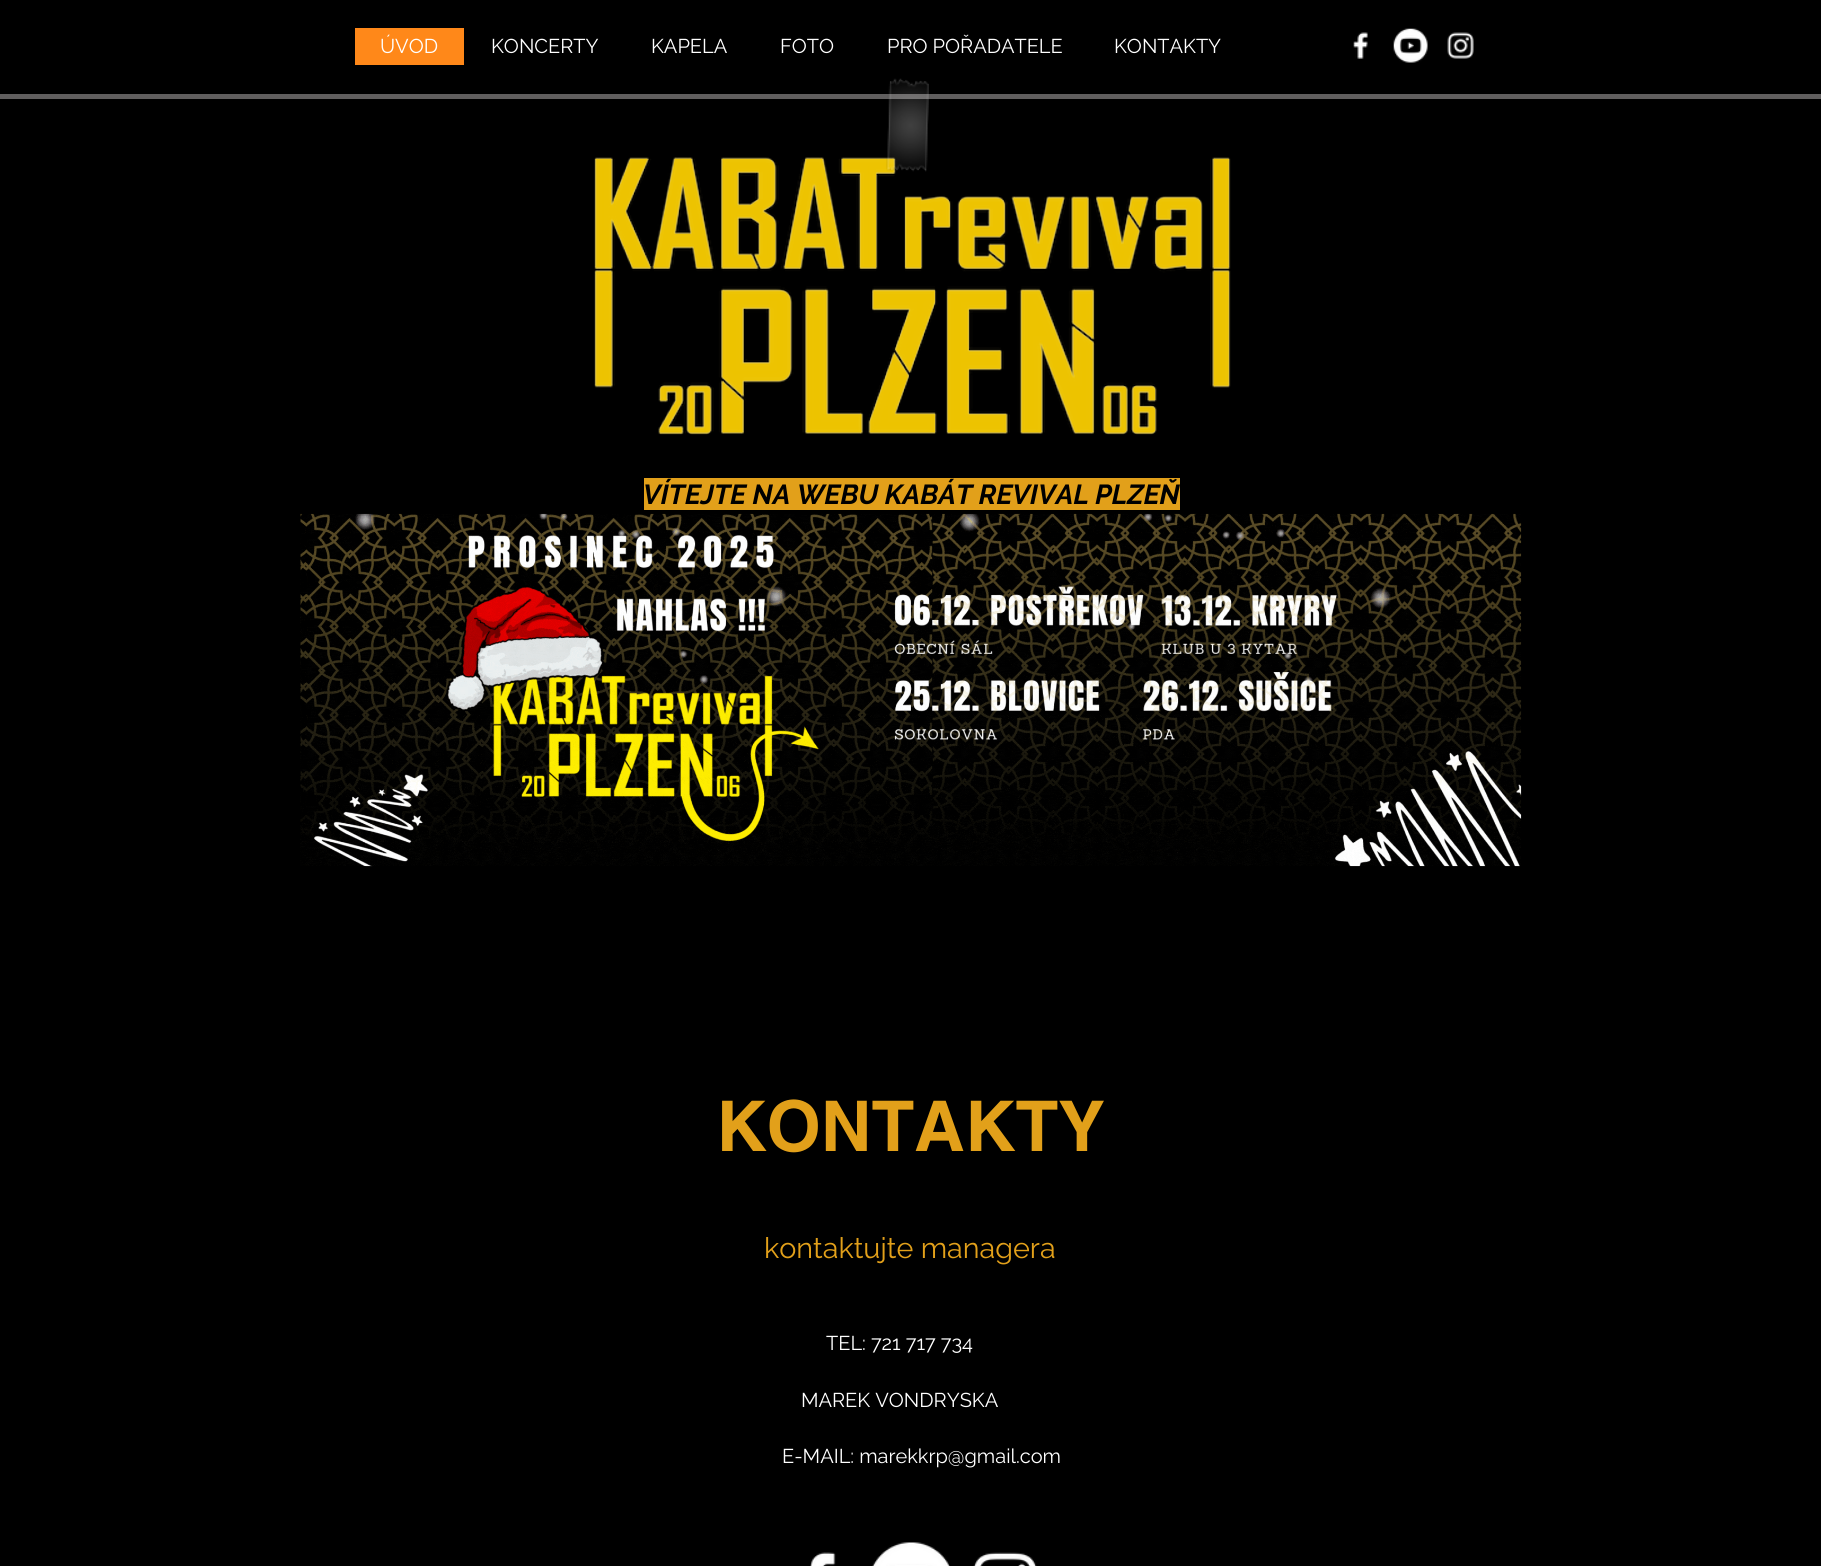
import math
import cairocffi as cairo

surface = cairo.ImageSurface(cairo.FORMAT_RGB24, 1821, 1566)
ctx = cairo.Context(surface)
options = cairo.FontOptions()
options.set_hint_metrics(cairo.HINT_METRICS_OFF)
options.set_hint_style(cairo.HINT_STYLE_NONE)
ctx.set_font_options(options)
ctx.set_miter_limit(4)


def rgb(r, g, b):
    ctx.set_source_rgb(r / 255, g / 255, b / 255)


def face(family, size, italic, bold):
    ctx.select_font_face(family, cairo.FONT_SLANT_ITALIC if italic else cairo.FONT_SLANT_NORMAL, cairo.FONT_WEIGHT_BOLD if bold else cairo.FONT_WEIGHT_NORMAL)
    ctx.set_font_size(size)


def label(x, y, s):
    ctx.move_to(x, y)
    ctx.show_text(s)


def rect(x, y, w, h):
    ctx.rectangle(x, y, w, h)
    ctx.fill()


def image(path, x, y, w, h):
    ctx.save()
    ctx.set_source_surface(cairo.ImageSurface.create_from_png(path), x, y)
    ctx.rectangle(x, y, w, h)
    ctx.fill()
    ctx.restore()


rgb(0, 0, 0)
ctx.paint()
rgb(255, 136, 25)
rect(355, 28, 109, 37)
face('Raleway', 20, 0, 0)
rgb(255, 255, 255)
label(380, 53, 'ÚVOD')
label(491, 53, 'KONCERTY')
label(651, 53, 'KAPELA')
label(780, 53, 'FOTO')
label(887, 53, 'PRO POŘADATELE')
label(1114, 53, 'KONTAKTY')
image('image0.png', 1353, 32, 15, 27)
image('image1.png', 1393, 28, 35, 35)
image('image2.png', 1447, 32, 27, 27)
image('image4.png', 594, 157, 637, 278)
rgb(96, 94, 94)
rect(0, 94, 1821, 5)
image('image3.png', 886, 78, 44, 94)
rgb(226, 160, 26)
rect(644, 478, 536, 32)
face('Raleway', 27.5, 1, 1)
rgb(0, 0, 0)
label(643, 504, 'VÍTEJTE NA WEBU KABÁT REVIVAL PLZEŇ')
image('image5.png', 300, 513, 1222, 354)
face('helvetica', 70, 0, 1)
rgb(226, 160, 26)
label(716, 1151, 'KONTAKTY')
face('Raleway', 28.75, 0, 0)
label(764, 1258, 'kontaktujte managera')
face('Raleway', 20, 0, 0)
rgb(255, 255, 255)
label(826, 1350, 'TEL: 721 717 734')
label(801, 1407, 'MAREK VONDRYSKA')
label(782, 1463, 'E-MAIL: marekkrp@gmail.com')
image('image6.png', 810, 1552, 26, 14)
image('image7.png', 872, 1542, 78, 24)
image('image8.png', 973, 1552, 64, 14)
surface.write_to_png('render.png')
